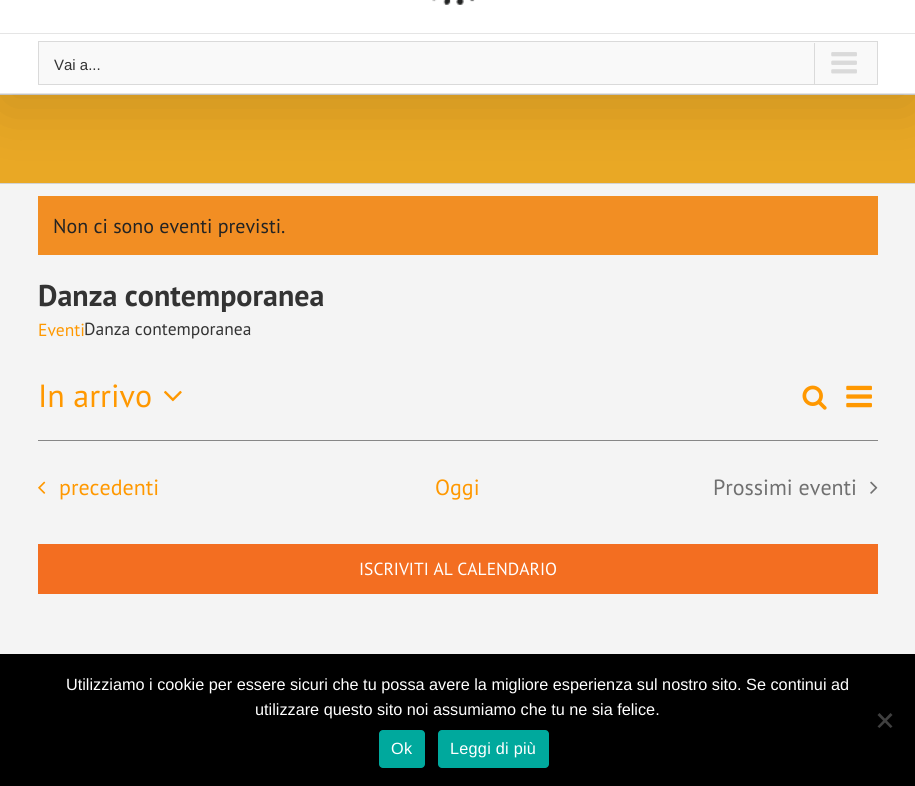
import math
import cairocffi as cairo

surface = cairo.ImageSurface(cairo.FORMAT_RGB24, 915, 786)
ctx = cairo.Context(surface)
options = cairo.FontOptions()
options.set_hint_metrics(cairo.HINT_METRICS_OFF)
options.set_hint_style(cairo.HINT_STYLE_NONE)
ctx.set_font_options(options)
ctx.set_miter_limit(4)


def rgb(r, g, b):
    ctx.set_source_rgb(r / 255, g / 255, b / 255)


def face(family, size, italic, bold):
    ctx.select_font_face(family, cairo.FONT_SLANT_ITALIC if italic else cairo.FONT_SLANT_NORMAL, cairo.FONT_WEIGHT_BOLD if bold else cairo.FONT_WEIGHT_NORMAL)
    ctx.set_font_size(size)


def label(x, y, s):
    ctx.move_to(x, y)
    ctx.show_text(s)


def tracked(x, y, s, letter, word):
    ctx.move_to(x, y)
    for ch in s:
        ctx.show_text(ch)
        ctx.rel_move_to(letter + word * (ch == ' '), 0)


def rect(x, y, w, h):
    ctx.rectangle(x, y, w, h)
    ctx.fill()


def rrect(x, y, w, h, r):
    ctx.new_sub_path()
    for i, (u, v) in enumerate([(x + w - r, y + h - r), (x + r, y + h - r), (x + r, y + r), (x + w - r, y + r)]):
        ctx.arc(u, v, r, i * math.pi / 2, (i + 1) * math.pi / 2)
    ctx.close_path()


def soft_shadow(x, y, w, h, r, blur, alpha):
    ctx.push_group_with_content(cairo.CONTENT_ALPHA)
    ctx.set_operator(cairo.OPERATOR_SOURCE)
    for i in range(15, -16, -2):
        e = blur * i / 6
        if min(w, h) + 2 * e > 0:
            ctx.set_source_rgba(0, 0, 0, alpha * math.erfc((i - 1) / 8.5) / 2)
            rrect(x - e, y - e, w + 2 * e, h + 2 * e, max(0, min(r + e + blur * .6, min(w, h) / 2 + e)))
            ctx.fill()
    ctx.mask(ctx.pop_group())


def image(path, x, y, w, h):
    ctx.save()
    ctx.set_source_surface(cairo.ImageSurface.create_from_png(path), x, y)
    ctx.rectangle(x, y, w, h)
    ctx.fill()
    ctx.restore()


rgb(244, 244, 244)
ctx.paint()
rgb(233, 168, 37)
rect(0, 95, 915, 88)
rgb(210, 211, 212)
rect(0, 94, 915, 1)
rect(0, 183, 915, 1)
rgb(242, 142, 35)
rect(38, 196, 840, 59)
rgb(0, 0, 0)
soft_shadow(3, -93, 910, 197, 0, 31, 0.14)
rgb(255, 255, 255)
rect(0, 0, 915, 33)
rgb(229, 229, 229)
rect(0, 33, 915, 1)
image('image0.png', 432, 0, 43, 5)
rgb(255, 255, 255)
rect(0, 34, 915, 59)
rgb(229, 229, 229)
rect(0, 93, 915, 1)
rgb(249, 249, 249)
ctx.rectangle(38.5, 41.5, 839, 43)
ctx.fill_preserve()
rgb(218, 218, 218)
ctx.set_line_width(1)
ctx.stroke()
face('Liberation Sans', 15, 0, 0)
rgb(51, 51, 51)
label(54, 70, 'Vai a...')
rgb(218, 218, 218)
rect(814, 43, 1, 41)
image('image1.png', 831, 52, 26, 22)
face('PT Sans', 20, 0, 0)
rgb(35, 35, 35)
label(53, 233, 'Non ci sono eventi previsti.')
face('PT Sans', 30, 0, 1)
rgb(51, 51, 51)
label(38, 306, 'Danza contemporanea')
face('PT Sans', 17.5, 0, 0)
rgb(255, 152, 0)
label(38, 336, 'Eventi')
rgb(51, 51, 51)
label(84, 335, 'Danza contemporanea')
face('PT Sans', 32, 0, 0)
rgb(255, 152, 0)
label(38, 407, 'In arrivo')
image('image2.png', 164, 390, 18, 12)
image('image3.png', 802, 385, 25, 25)
image('image4.png', 846, 385, 26, 23)
rgb(135, 135, 135)
rect(38, 440, 840, 1)
image('image5.png', 38, 481, 8, 13)
face('PT Sans', 22, 0, 0)
rgb(255, 152, 0)
label(59, 495, 'precedenti')
label(435, 495, 'Oggi')
rgb(112, 112, 112)
label(713, 495, 'Prossimi eventi')
image('image6.png', 870, 481, 8, 13)
rgb(243, 110, 33)
rect(38, 544, 840, 50)
face('PT Sans', 17.5, 0, 0)
rgb(255, 255, 255)
label(359, 575, 'ISCRIVITI AL CALENDARIO')
rgb(0, 0, 0)
rect(0, 654, 915, 132)
face('Liberation Sans', 16.25, 0, 0)
rgb(255, 255, 255)
label(66, 690, 'Utilizziamo i cookie per essere sicuri che tu possa avere la migliore esperienza sul nostro sito. Se continui ad')
label(255, 715, 'utilizzare questo sito noi assumiamo che tu ne sia felice.')
rgb(64, 64, 64)
ctx.new_path()
ctx.move_to(890.5, 713)
ctx.line_to(892.5, 715)
ctx.line_to(879.5, 728)
ctx.line_to(877.5, 726.5)
ctx.close_path()
ctx.fill()
ctx.new_path()
ctx.move_to(877.5, 715)
ctx.line_to(879.5, 713)
ctx.line_to(892.5, 726.5)
ctx.line_to(890.5, 728)
ctx.close_path()
ctx.fill()
rgb(0, 169, 157)
rrect(379, 730, 46, 38, 4)
ctx.fill()
rgb(255, 255, 255)
tracked(391, 754, 'Ok', 0.25, 0)
rgb(0, 169, 157)
rrect(438, 730, 111, 38, 4)
ctx.fill()
rgb(255, 255, 255)
tracked(450, 754, 'Leggi di più', 0.25, 0)
surface.write_to_png('render.png')
